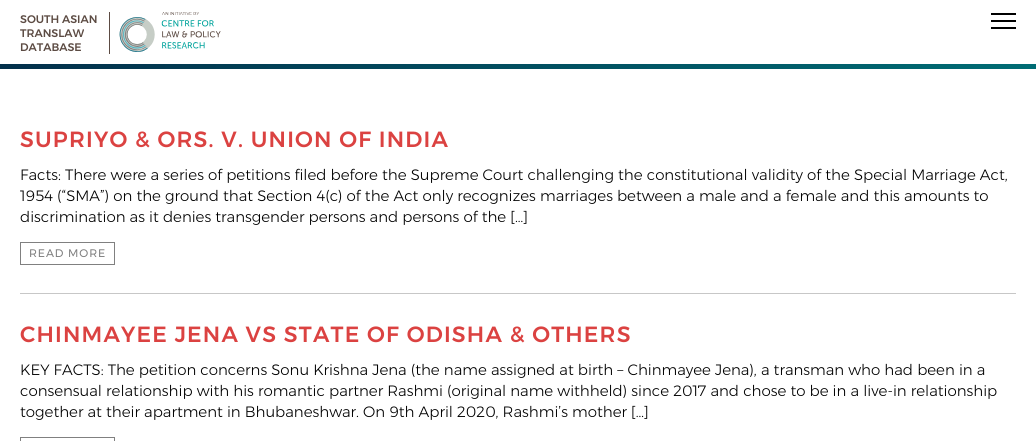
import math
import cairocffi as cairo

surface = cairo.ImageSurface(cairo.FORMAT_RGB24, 1036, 441)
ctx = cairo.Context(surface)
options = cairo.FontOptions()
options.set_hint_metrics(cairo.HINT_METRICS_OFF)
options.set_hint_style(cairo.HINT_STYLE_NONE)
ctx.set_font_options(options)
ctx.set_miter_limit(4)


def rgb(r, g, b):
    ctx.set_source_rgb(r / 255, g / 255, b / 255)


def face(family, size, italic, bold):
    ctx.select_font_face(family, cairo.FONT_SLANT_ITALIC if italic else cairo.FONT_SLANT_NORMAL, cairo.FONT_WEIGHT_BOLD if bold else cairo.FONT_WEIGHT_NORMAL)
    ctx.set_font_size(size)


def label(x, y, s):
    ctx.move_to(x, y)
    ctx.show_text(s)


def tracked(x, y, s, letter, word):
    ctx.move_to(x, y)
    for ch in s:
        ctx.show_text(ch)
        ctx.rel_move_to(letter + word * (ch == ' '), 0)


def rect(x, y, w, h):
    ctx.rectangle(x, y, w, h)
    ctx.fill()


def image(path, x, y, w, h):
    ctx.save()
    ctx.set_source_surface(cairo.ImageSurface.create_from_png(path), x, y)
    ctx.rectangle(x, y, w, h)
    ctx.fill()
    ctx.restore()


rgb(255, 255, 255)
ctx.paint()
rgb(92, 75, 67)
rect(109, 12, 1, 42)
face('Montserrat Medium', 11, 0, 0)
label(20, 23, 'SOUTH ASIAN')
label(20, 37, 'TRANSLAW')
label(20, 51, 'DATABASE')
image('image0.png', 119, 12, 102, 40)
rgb(0, 0, 0)
rect(991, 13, 25, 2)
rect(991, 20, 25, 2)
rect(991, 27, 25, 2)
gradient = cairo.LinearGradient(0, 67, 1036, 66)
gradient.add_color_stop_rgba(0, 0.012, 0.188, 0.294, 1)
gradient.add_color_stop_rgba(1, 0, 0.424, 0.455, 1)
ctx.set_source(gradient)
rect(0, 64, 1036, 5)
face('Montserrat Medium', 22, 0, 0)
rgb(219, 66, 65)
tracked(20, 147, 'SUPRIYO & ORS. V. UNION OF INDIA', 1.2, 0)
face('Montserrat Light', 15, 0, 0)
rgb(0, 0, 0)
label(20, 180, 'Facts: There were a series of petitions filed before the Supreme Court challenging the constitutional validity of the Special Marriage Act,')
label(20, 201, '1954 (“SMA”) on the ground that Section 4(c) of the Act only recognizes marriages between a male and a female and this amounts to')
label(20, 222, 'discrimination as it denies transgender persons and persons of the […]')
ctx.rectangle(20.5, 242.5, 94, 22)
rgb(128, 128, 128)
ctx.set_line_width(1)
ctx.stroke()
face('Montserrat', 11, 0, 0)
tracked(29, 257, 'READ MORE', 0.9, 0)
rgb(199, 199, 199)
rect(20, 293, 996, 1)
face('Montserrat Medium', 22, 0, 0)
rgb(219, 66, 65)
tracked(20, 342, 'CHINMAYEE JENA VS STATE OF ODISHA & OTHERS', 1.2, 0)
face('Montserrat Light', 15, 0, 0)
rgb(0, 0, 0)
label(20, 375, 'KEY FACTS: The petition concerns Sonu Krishna Jena (the name assigned at birth – Chinmayee Jena), a transman who had been in a')
label(20, 396, 'consensual relationship with his romantic partner Rashmi (original name withheld) since 2017 and chose to be in a live-in relationship')
label(20, 417, 'together at their apartment in Bhubaneshwar. On 9th April 2020, Rashmi’s mother […]')
ctx.rectangle(20.5, 437.5, 94, 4)
rgb(128, 128, 128)
ctx.stroke()
surface.write_to_png('render.png')
